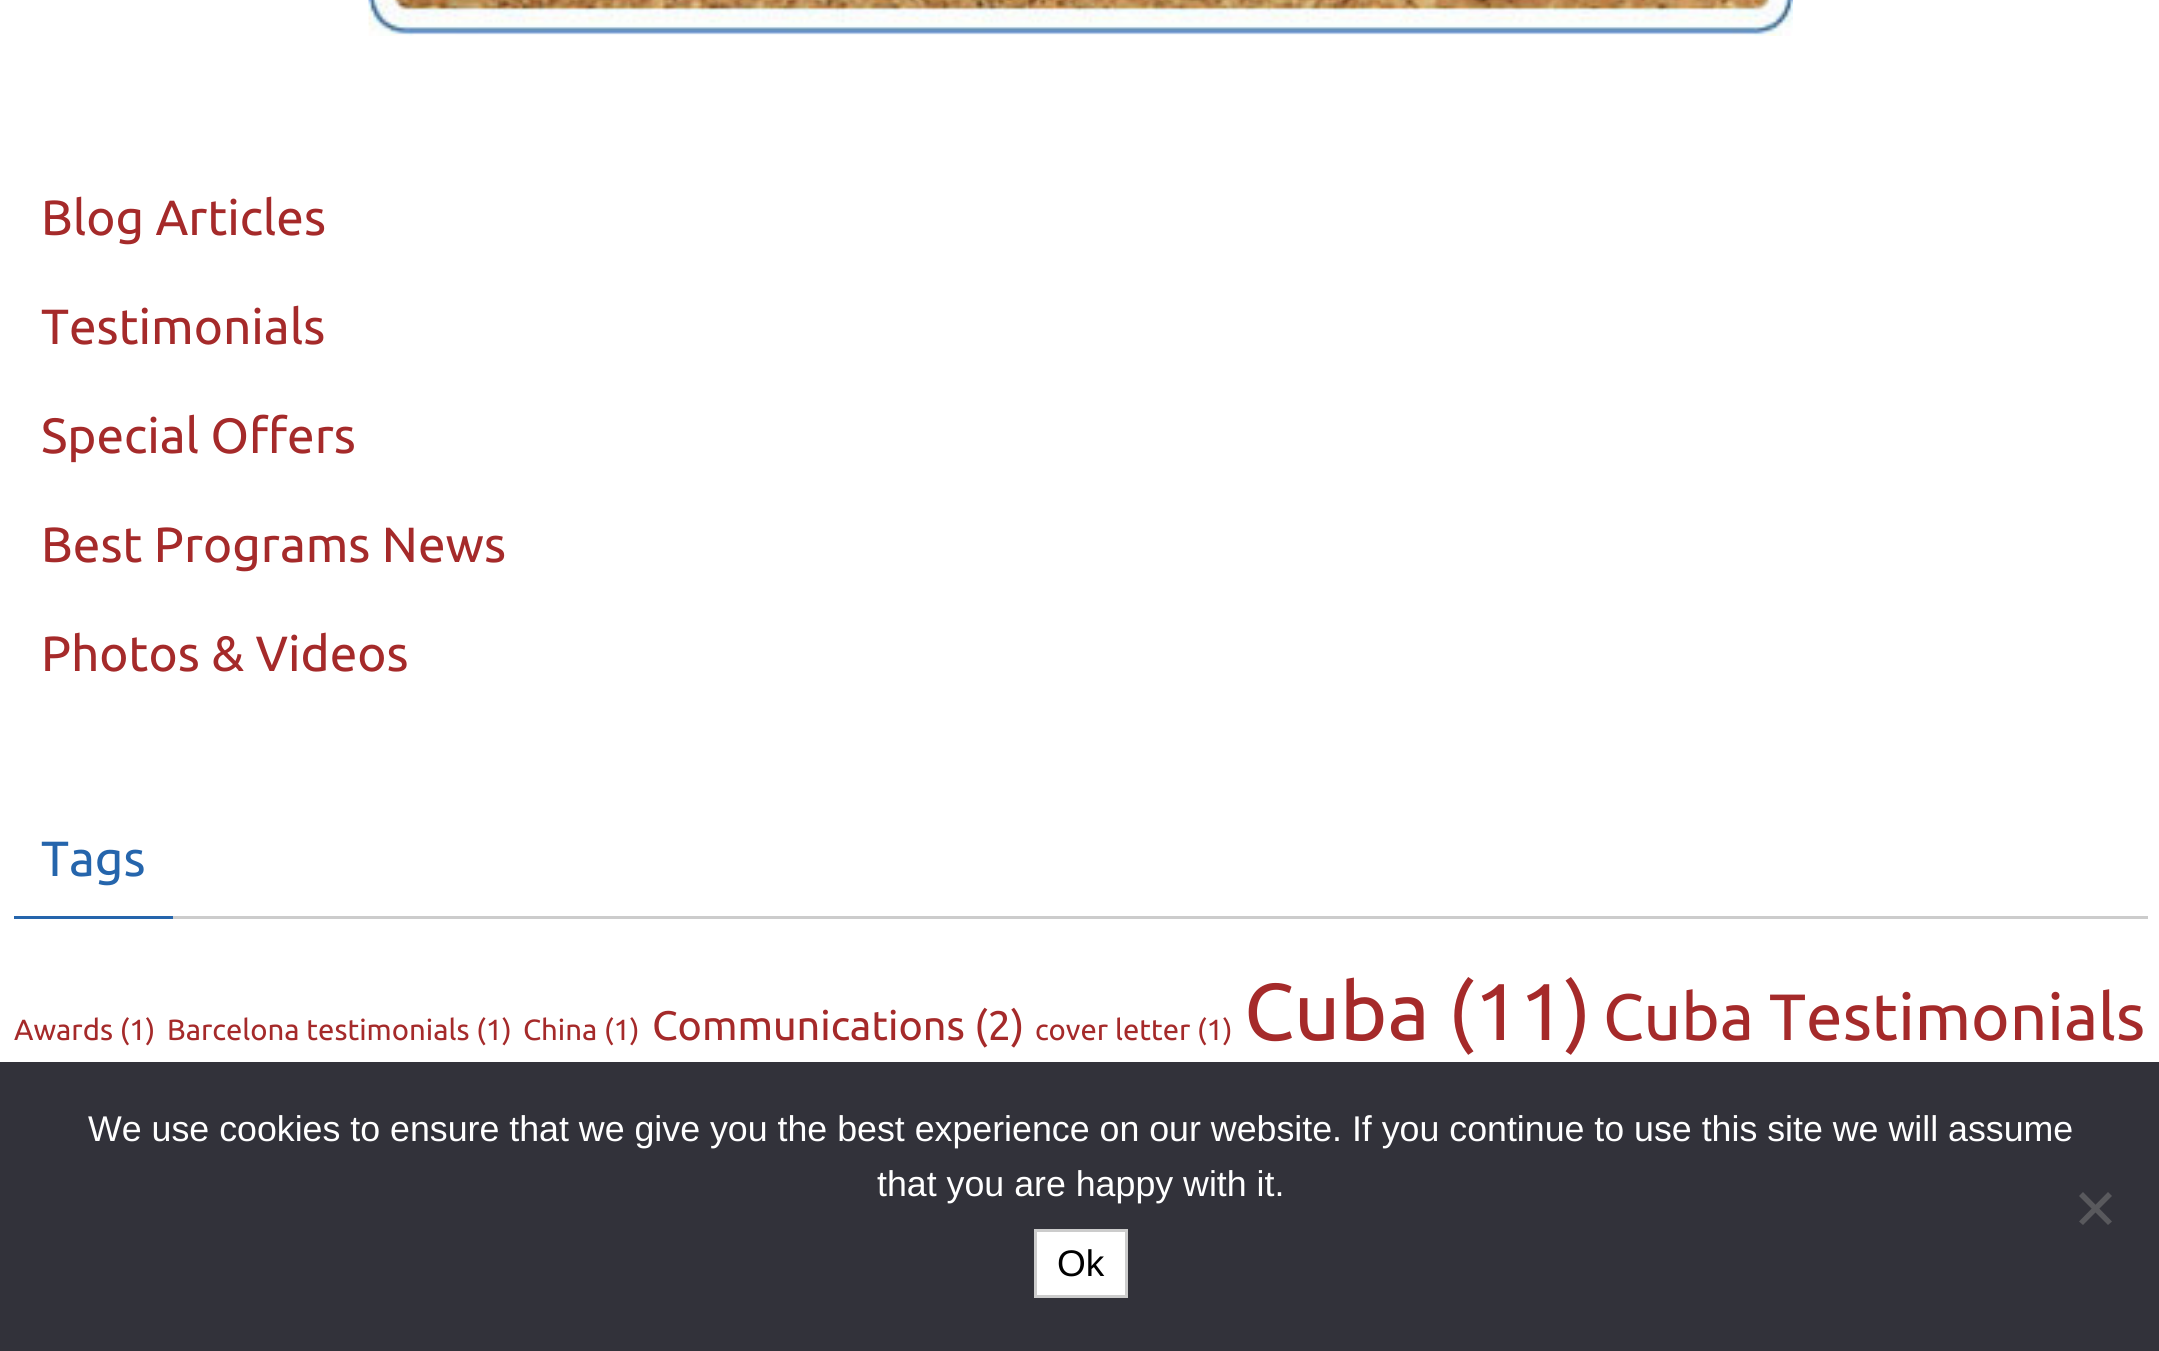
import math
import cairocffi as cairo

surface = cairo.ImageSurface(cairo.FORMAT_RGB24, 2159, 1351)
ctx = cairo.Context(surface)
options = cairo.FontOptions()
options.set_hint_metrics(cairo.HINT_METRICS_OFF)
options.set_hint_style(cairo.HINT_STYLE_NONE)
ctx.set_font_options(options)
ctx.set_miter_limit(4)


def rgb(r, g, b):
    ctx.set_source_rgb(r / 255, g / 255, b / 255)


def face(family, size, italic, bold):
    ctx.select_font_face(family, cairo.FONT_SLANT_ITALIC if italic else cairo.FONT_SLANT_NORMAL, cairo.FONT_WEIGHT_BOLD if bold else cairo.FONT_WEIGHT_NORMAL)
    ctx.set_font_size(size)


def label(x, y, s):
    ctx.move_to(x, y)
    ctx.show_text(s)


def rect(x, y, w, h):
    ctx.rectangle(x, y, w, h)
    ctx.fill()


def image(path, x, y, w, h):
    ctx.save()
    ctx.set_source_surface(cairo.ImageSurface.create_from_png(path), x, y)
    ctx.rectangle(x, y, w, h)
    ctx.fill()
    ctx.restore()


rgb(255, 255, 255)
ctx.paint()
image('image0.png', 368, 0, 1425, 36)
face('Ubuntu', 49.5, 0, 0)
rgb(165, 42, 42)
label(41, 235, 'Blog Articles')
label(41, 344, 'Testimonials')
label(41, 453, 'Special Offers')
label(41, 562, 'Best Programs News')
label(41, 671, 'Photos & Videos')
rgb(204, 204, 204)
rect(173, 916, 1975, 3)
rgb(37, 101, 172)
rect(14, 916, 159, 3)
label(41, 876, 'Tags')
face('Ubuntu', 29.25, 0, 0)
rgb(165, 42, 42)
label(14, 1040, 'Awards (1)')
label(167, 1040, 'Barcelona testimonials (1)')
label(523, 1040, 'China (1)')
face('Ubuntu', 41.25, 0, 0)
label(652, 1040, 'Communications (2)')
face('Ubuntu', 29.25, 0, 0)
label(1035, 1040, 'cover letter (1)')
face('Ubuntu', 80.5, 0, 0)
label(1244, 1040, 'Cuba (11)')
face('Ubuntu', 65.5, 0, 0)
label(1603, 1040, 'Cuba Testimonials')
rgb(50, 50, 58)
rect(0, 1062, 2159, 289)
face('Liberation Sans', 35.75, 0, 0)
rgb(255, 255, 255)
label(88, 1141, 'We use cookies to ensure that we give you the best experience on our website. If you continue to use this site we will assume')
label(877, 1196, 'that you are happy with it.')
rgb(89, 89, 93)
ctx.new_path()
ctx.move_to(2108, 1192)
ctx.line_to(2112, 1196)
ctx.line_to(2083, 1225)
ctx.line_to(2079, 1221.5)
ctx.close_path()
ctx.fill()
ctx.new_path()
ctx.move_to(2079, 1196)
ctx.line_to(2083, 1192)
ctx.line_to(2112, 1221.5)
ctx.line_to(2108, 1225)
ctx.close_path()
ctx.fill()
rgb(255, 255, 255)
ctx.rectangle(1035.5, 1230.5, 91, 66)
ctx.fill_preserve()
rgb(204, 204, 204)
ctx.set_line_width(3)
ctx.stroke()
face('Liberation Sans', 37, 0, 0)
rgb(0, 0, 0)
label(1057, 1276, 'Ok')
surface.write_to_png('render.png')
